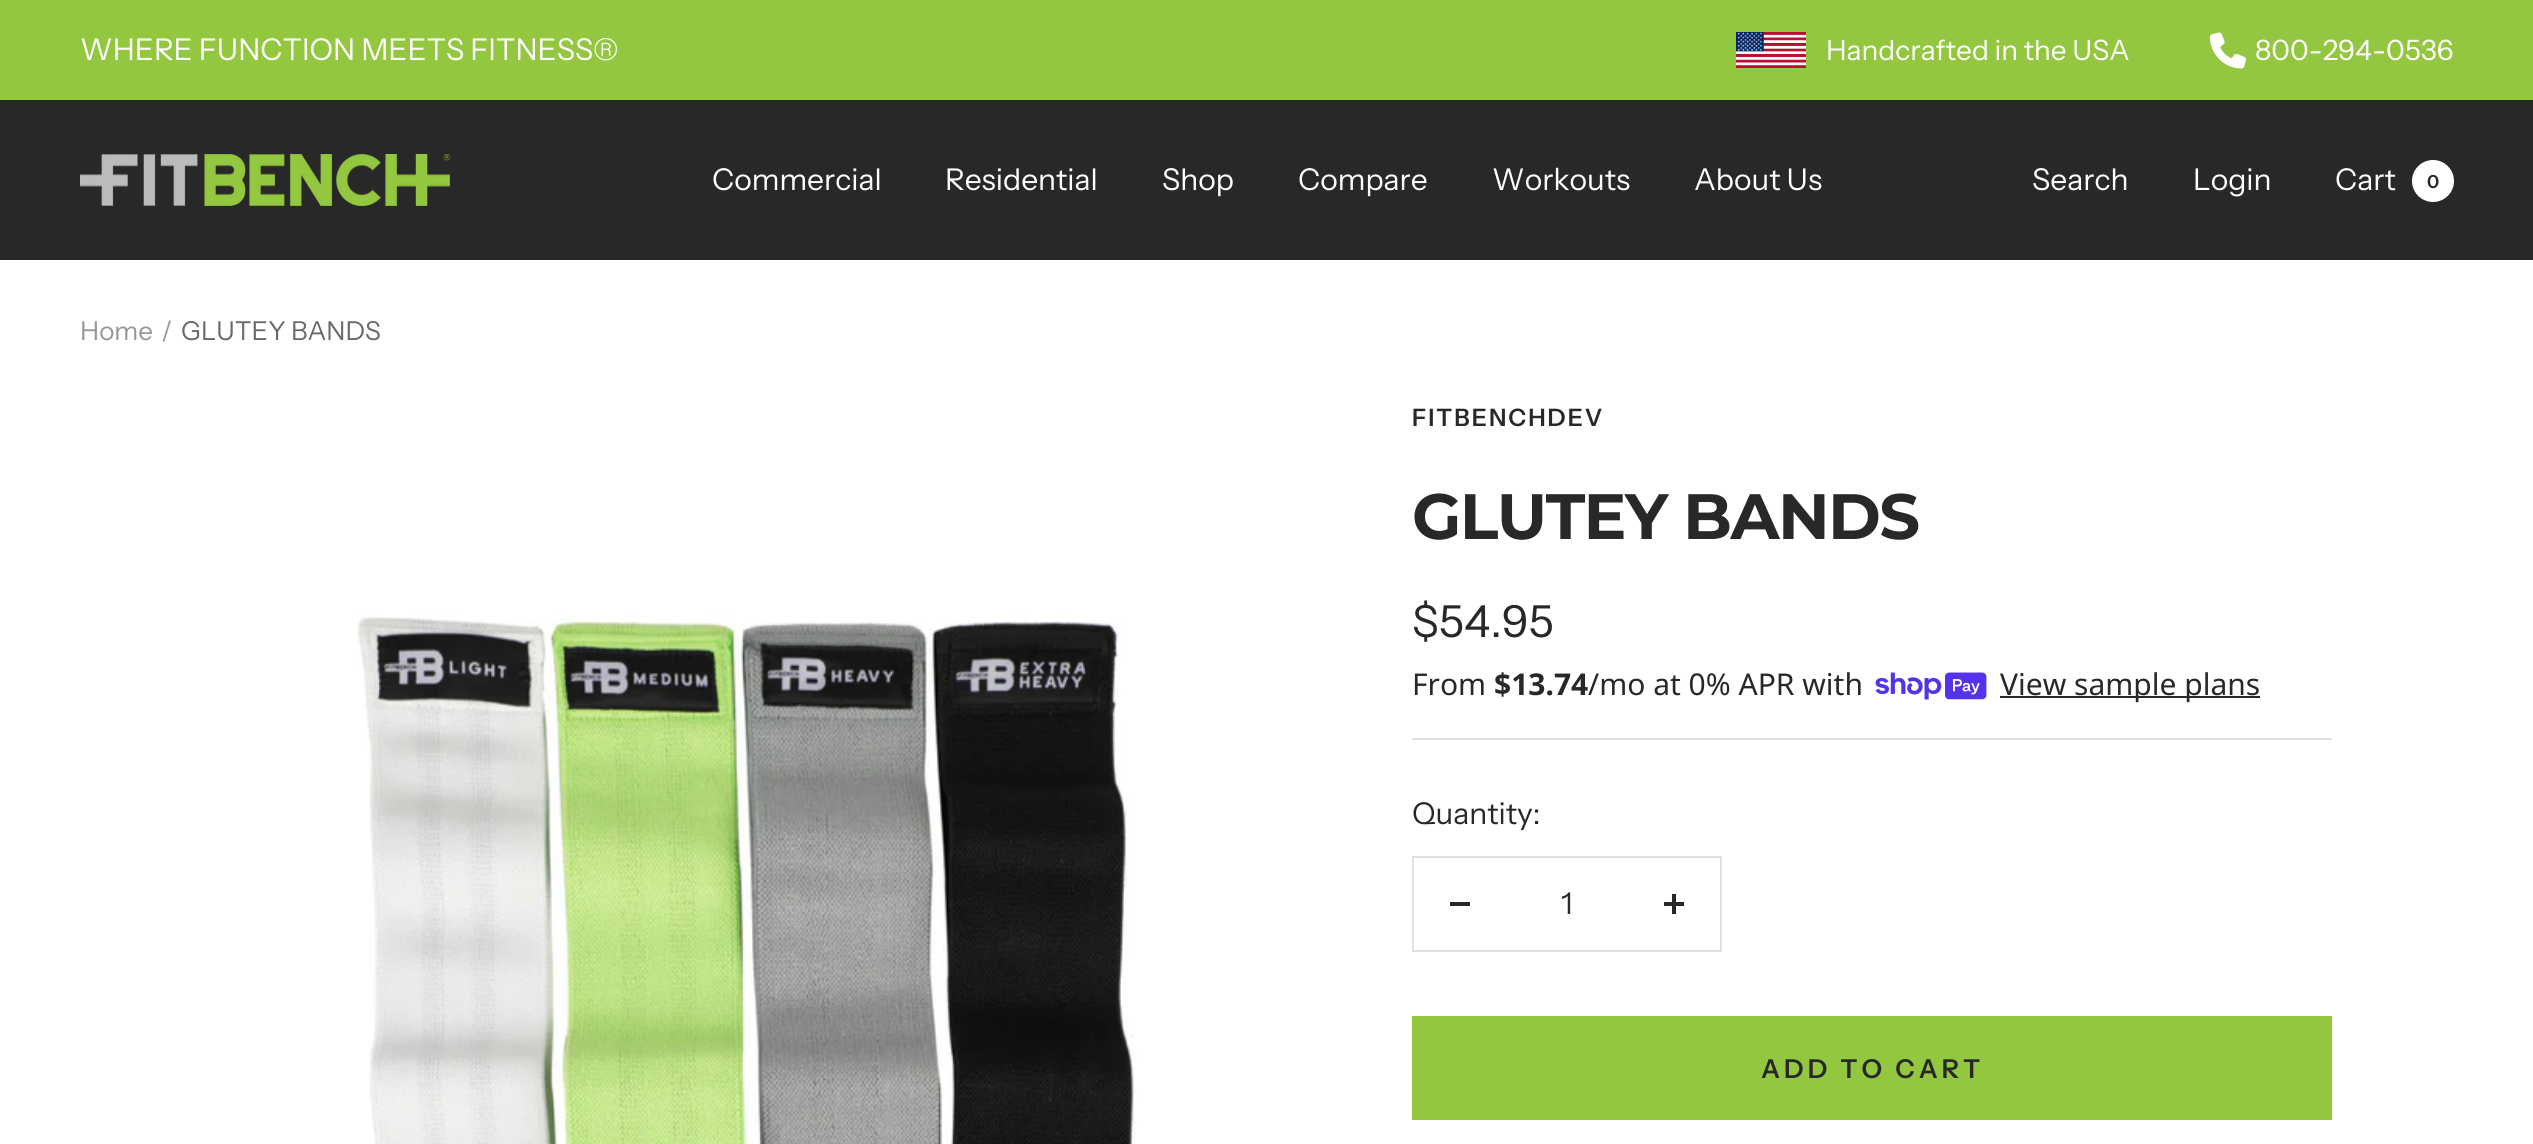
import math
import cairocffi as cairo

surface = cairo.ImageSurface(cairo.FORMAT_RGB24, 2533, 1144)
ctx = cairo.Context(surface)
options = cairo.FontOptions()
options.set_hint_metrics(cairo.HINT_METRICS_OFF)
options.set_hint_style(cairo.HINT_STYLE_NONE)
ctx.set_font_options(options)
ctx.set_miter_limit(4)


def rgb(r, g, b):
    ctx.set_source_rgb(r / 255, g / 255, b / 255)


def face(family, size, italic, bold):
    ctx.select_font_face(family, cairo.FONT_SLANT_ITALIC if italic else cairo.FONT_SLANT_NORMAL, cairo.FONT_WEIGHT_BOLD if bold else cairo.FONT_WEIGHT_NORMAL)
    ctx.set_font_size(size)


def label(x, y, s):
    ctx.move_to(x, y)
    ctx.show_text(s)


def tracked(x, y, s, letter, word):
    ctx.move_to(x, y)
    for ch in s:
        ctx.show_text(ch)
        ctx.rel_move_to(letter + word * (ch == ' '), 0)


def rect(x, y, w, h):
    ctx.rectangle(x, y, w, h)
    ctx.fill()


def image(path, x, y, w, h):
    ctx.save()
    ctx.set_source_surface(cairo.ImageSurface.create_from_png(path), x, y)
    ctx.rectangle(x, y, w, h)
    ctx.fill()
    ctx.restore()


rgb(255, 255, 255)
ctx.paint()
rgb(148, 199, 64)
rect(0, 0, 2533, 100)
face('Instrument Sans', 30, 0, 0)
rgb(255, 255, 255)
label(80, 60, 'WHERE FUNCTION MEETS FITNESS®')
image('image0.png', 1736, 32, 70, 36)
face('Instrument Sans', 28, 0, 0)
label(1826, 60, 'Handcrafted in the USA')
image('image1.png', 2210, 32, 36, 37)
label(2255, 60, '800-294-0536')
rgb(40, 40, 40)
rect(0, 100, 2533, 160)
image('image2.png', 80, 154, 370, 52)
face('Instrument Sans', 30, 0, 0)
rgb(255, 255, 255)
label(712, 190, 'Commercial')
label(945, 190, 'Residential')
label(1162, 190, 'Shop')
label(1298, 190, 'Compare')
label(1492, 190, 'Workouts')
label(1694, 190, 'About Us')
label(2032, 190, 'Search')
label(2193, 190, 'Login')
label(2335, 190, 'Cart')
ctx.new_path()
ctx.arc(2433, 181, 21, 0, 2 * math.pi)
ctx.fill()
face('Instrument Sans SemiBold', 18, 0, 0)
rgb(40, 40, 40)
label(2427, 188, '0')
face('Instrument Sans', 26, 0, 0)
rgb(150, 150, 150)
label(80, 340, 'Home')
label(161, 340, '/')
rgb(105, 105, 105)
label(181, 340, 'GLUTEY BANDS')
image('image3.png', 202, 404, 1088, 740)
rgb(223, 223, 223)
rect(1412, 738, 920, 2)
face('Instrument Sans SemiBold', 24, 0, 0)
rgb(40, 40, 40)
tracked(1412, 426, 'FITBENCHDEV', 2, 0)
face('Montserrat', 64, 0, 1)
tracked(1412, 539, 'GLUTEY BANDS', -1.6, 0)
face('Instrument Sans', 44, 0, 0)
label(1412, 637, '$54.95')
face('Noto Sans', 30, 0, 0)
label(1412, 695, 'From')
face('Noto Sans', 30, 0, 1)
label(1494, 695, '$13.74')
face('Noto Sans', 30, 0, 0)
label(1588, 695, '/mo at 0% APR with')
image('image4.png', 1875, 672, 112, 28)
rect(2000, 696, 260, 2)
label(2000, 695, 'View sample plans')
face('Instrument Sans', 30, 0, 0)
label(1412, 824, 'Quantity:')
ctx.rectangle(1413, 857, 308, 94)
rgb(223, 223, 223)
ctx.stroke()
rgb(40, 40, 40)
rect(1450, 902, 20, 4)
label(1561, 914, '1')
image('image5.png', 1664, 894, 20, 20)
rgb(148, 199, 64)
rect(1412, 1016, 920, 104)
face('Instrument Sans SemiBold', 26, 0, 0)
rgb(40, 40, 40)
tracked(1761, 1078, 'ADD TO CART', 4, 0)
surface.write_to_png('render.png')
